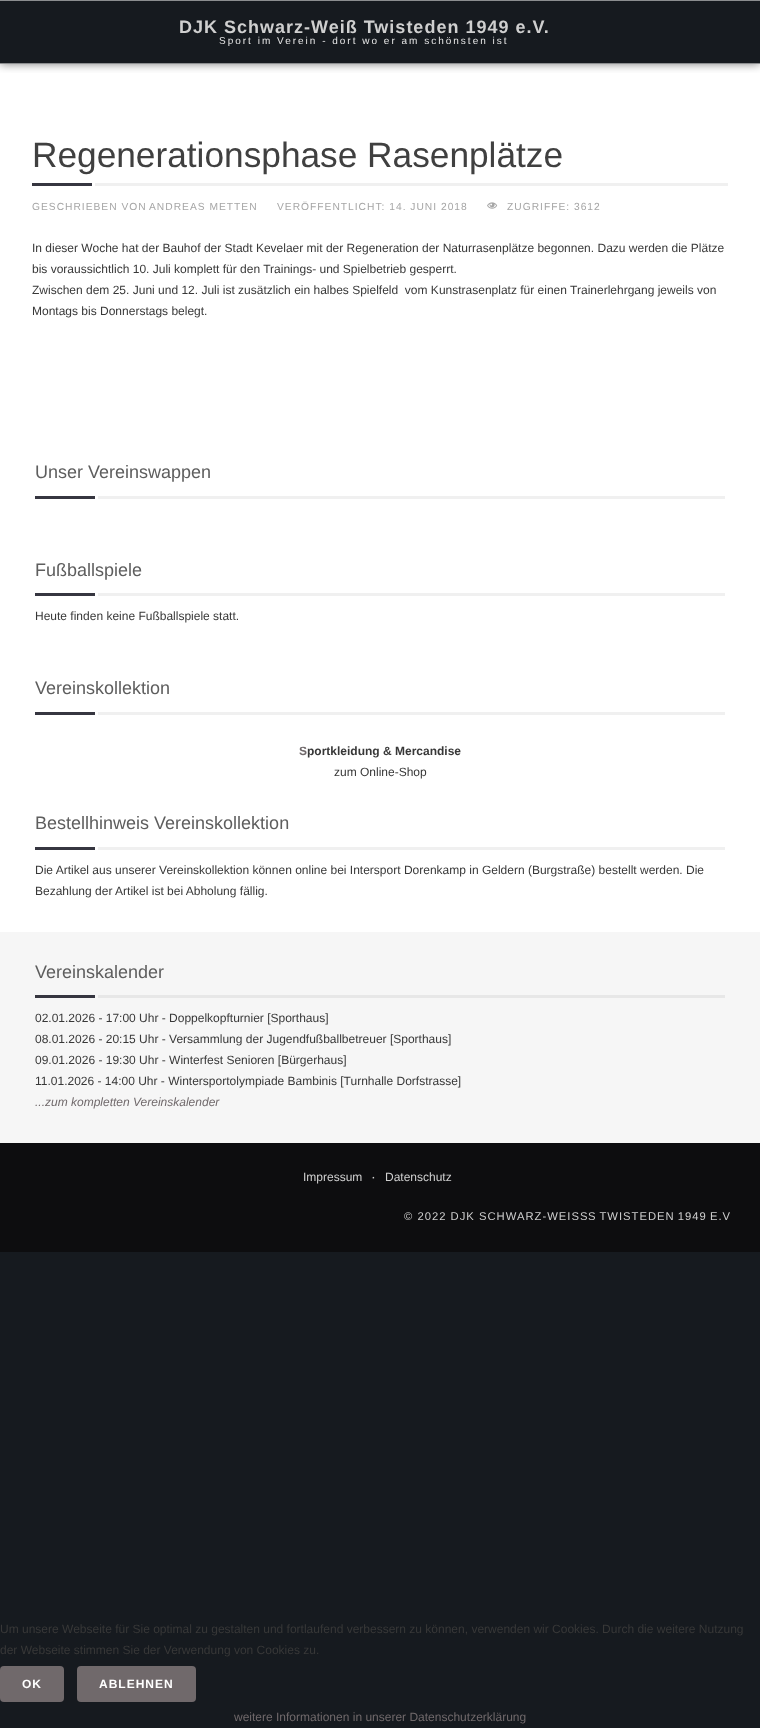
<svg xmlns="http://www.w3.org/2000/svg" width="760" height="1728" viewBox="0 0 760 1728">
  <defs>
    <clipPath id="clip1"><path d="M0 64h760v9H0z"/></clipPath>
  </defs>
  <rect width="100%" height="100%" fill="#161a1f"/>
  <path d="M0 64h760v868H0z" fill="#fff"/>
  <g clip-path="url(#clip1)">
    <path d="M0 0h760v64H0z" fill="#00000080" filter="blur(5px)"/>
  </g>
  <path d="M0 63h760v1H0z" fill="#8b8d8f"/>
  <path d="M0 0h760v1H0z" fill="#8b8d8f"/>
  <path d="M32 183h60v3H32z" fill="#363640"/>
  <path d="M95 183h633v3H95z" fill="#f0f0f0"/>
  <image x="487" y="202" width="11" height="7" href="img/1.png"/>
  <path d="M35 496h60v3H35z" fill="#363640"/>
  <path d="M98 496h627v3H98z" fill="#f0f0f0"/>
  <path d="M35 593h60v3H35z" fill="#363640"/>
  <path d="M98 593h627v3H98z" fill="#f0f0f0"/>
  <path d="M35 712h60v3H35z" fill="#363640"/>
  <path d="M98 712h627v3H98z" fill="#f0f0f0"/>
  <path d="M35 847h60v3H35z" fill="#363640"/>
  <path d="M98 847h627v3H98z" fill="#f0f0f0"/>
  <path d="M0 932h760v211H0z" fill="#f6f6f6"/>
  <path d="M35 995h60v3H35z" fill="#363640"/>
  <path d="M98 995h627v3H98z" fill="#e7e7e7"/>
  <path d="M0 1143h760v109H0z" fill="#0d0d0f"/>
  <rect y="1666" width="64" height="36" rx="4" fill="#70696b"/>
  <rect x="77" y="1666" width="119" height="36" rx="4" fill="#70696b"/>
  <text x="179" y="33" font-family="Liberation Sans" font-size="18" font-weight="bold" letter-spacing="1" fill="#cfcfcf">DJK Schwarz-Weiß Twisteden 1949 e.V.</text>
  <text x="219" y="44" font-family="Liberation Sans" font-size="10" letter-spacing="2" fill="#e6e6e6">Sport im Verein - dort wo er am schönsten ist</text>
  <text x="32" y="167" font-family="Liberation Sans" font-size="35.25" fill="#404040">Regenerationsphase Rasenplätze</text>
  <g font-family="Liberation Sans" font-size="10.25" letter-spacing="1" fill="#a6a6a6">
    <text x="32" y="210">GESCHRIEBEN VON</text>
    <text x="149" y="210">ANDREAS METTEN</text>
    <text x="277" y="210">VERÖFFENTLICHT: 14. JUNI 2018</text>
    <text x="507" y="210">ZUGRIFFE: 3612</text>
  </g>
  <g font-family="Liberation Sans" font-size="12" fill="#383838">
    <text x="32" y="252">In dieser Woche hat der Bauhof der Stadt Kevelaer mit der Regeneration der Naturrasenplätze begonnen. Dazu werden die Plätze</text>
    <text x="32" y="273">bis voraussichtlich 10. Juli komplett für den Trainings- und Spielbetrieb gesperrt.</text>
    <text x="32" y="294" xml:space="preserve">Zwischen dem 25. Juni und 12. Juli ist zusätzlich ein halbes Spielfeld  vom Kunstrasenplatz für einen Trainerlehrgang jeweils von</text>
    <text x="32" y="315">Montags bis Donnerstags belegt.</text>
  </g>
  <g font-family="Liberation Sans" font-size="18" fill="#5e5e5e">
    <text x="35" y="478">Unser Vereinswappen</text>
    <text x="35" y="576">Fußballspiele</text>
  </g>
  <text x="35" y="620" font-family="Liberation Sans" font-size="12" fill="#383838">Heute finden keine Fußballspiele statt.</text>
  <text x="35" y="694" font-family="Liberation Sans" font-size="18" fill="#5e5e5e">Vereinskollektion</text>
  <text x="299" y="755" font-family="Liberation Sans" font-size="12" font-weight="bold" fill="#70696b">S</text>
  <text x="307" y="755" font-family="Liberation Sans" font-size="12" font-weight="bold" fill="#383838">portkleidung &amp; Mercandise</text>
  <text x="334" y="776" font-family="Liberation Sans" font-size="12" fill="#383838">zum Online-Shop</text>
  <text x="35" y="829" font-family="Liberation Sans" font-size="18" fill="#5e5e5e">Bestellhinweis Vereinskollektion</text>
  <g font-family="Liberation Sans" font-size="12" fill="#383838">
    <text x="35" y="874">Die Artikel aus unserer Vereinskollektion können online bei Intersport Dorenkamp in Geldern (Burgstraße) bestellt werden. Die</text>
    <text x="35" y="895">Bezahlung der Artikel ist bei Abholung fällig.</text>
  </g>
  <text x="35" y="978" font-family="Liberation Sans" font-size="18" fill="#5e5e5e">Vereinskalender</text>
  <g font-family="Liberation Sans" font-size="12" fill="#383838">
    <text x="35" y="1022">02.01.2026 - 17:00 Uhr - Doppelkopfturnier [Sporthaus]</text>
    <text x="35" y="1043">08.01.2026 - 20:15 Uhr - Versammlung der Jugendfußballbetreuer [Sporthaus]</text>
    <text x="35" y="1064">09.01.2026 - 19:30 Uhr - Winterfest Senioren [Bürgerhaus]</text>
    <text x="35" y="1085">11.01.2026 - 14:00 Uhr - Wintersportolympiade Bambinis [Turnhalle Dorfstrasse]</text>
  </g>
  <text x="35" y="1106" font-family="Liberation Sans" font-size="12" font-style="italic" fill="#70696b">...zum kompletten Vereinskalender</text>
  <text x="303" y="1181" font-family="Liberation Sans" font-size="12" fill="#cfcfcf">Impressum</text>
  <text x="372" y="1181" font-family="Liberation Sans" font-size="10" font-weight="bold" fill="#cfcfcf">·</text>
  <text x="385" y="1181" font-family="Liberation Sans" font-size="12" fill="#cfcfcf">Datenschutz</text>
  <g font-family="Liberation Sans" font-size="11.25" letter-spacing="1" fill="#cfcfcf">
    <text x="404" y="1220">© 2022 DJK SCHWARZ-WEISS</text>
    <text x="588" y="1220" word-spacing="-1">S TWISTEDEN 1949 E.V</text>
  </g>
  <g font-family="Liberation Sans" font-size="12" fill="#383838">
    <text x="0" y="1633">Um unsere Webseite für Sie optimal zu gestalten und fortlaufend verbessern zu können, verwenden wir Cookies. Durch die weitere Nutzung</text>
    <text x="0" y="1654">der Webseite stimmen Sie der Verwendung von Cookies zu.</text>
  </g>
  <g font-family="Liberation Sans" font-size="12" font-weight="bold" letter-spacing="1" fill="#fff">
    <text x="22" y="1688">OK</text>
    <text x="99" y="1688">ABLEHNEN</text>
  </g>
  <text x="234" y="1721" font-family="Liberation Sans" font-size="12" fill="#70696b">weitere Informationen in unserer Datenschutzerklärung</text>
</svg>
